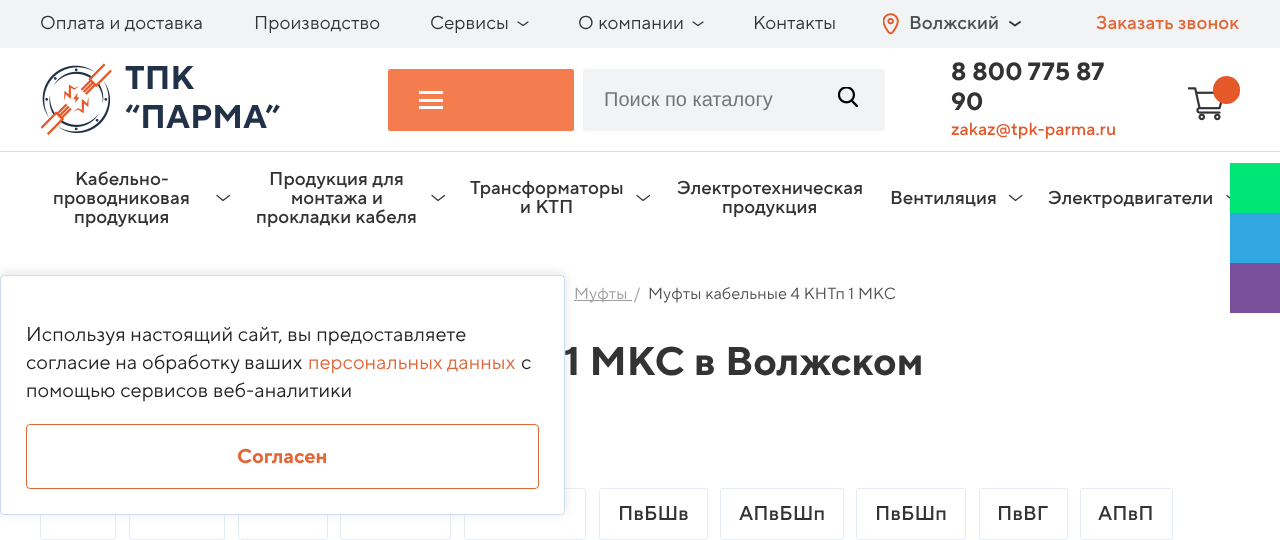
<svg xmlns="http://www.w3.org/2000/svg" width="1280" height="540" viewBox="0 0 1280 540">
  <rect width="100%" height="100%" fill="#fff"/>
  <path d="M0 0h1280v48H0z" fill="#f2f3f5"/>
  <path d="M528 22L523 25.5L518 22" fill="none" stroke="#333" stroke-width="1.2" stroke-linecap="round" stroke-linejoin="round"/>
  <path d="M703 22L698 25.5L693 22" fill="none" stroke="#333" stroke-width="1.2" stroke-linecap="round" stroke-linejoin="round"/>
  <image x="883" y="13" width="16" height="22" href="img/1.png"/>
  <path d="M1020 22L1015 25.5L1010 22" fill="none" stroke="#333" stroke-width="1.9" stroke-linecap="round" stroke-linejoin="round"/>
  <path d="M0 151h1280v1H0z" fill="#d9dee5"/>
  <image x="41" y="63" width="71" height="72" href="img/2.png"/>
  <rect x="388" y="69" width="186" height="62" rx="2.5" fill="#f57c4e"/>
  <path d="M419 91h24v3H419z" fill="#fff"/>
  <path d="M419 99h24v3H419z" fill="#fff"/>
  <path d="M419 106h24v3H419z" fill="#fff"/>
  <rect x="583" y="69" width="302" height="62" rx="2.5" fill="#f2f3f5"/>
  <image x="838" y="87" width="20" height="20" href="img/3.png"/>
  <image x="1188" y="87" width="35" height="34" href="img/4.png"/>
  <rect x="1213" y="76" width="27" height="28" rx="13.5" fill="#e45829"/>
  <path d="M229.5 195.5L223 200.5L217 195.5" fill="none" stroke="#333" stroke-width="1.2" stroke-linecap="round" stroke-linejoin="round"/>
  <path d="M444.5 195.5L438 200.5L432 195.5" fill="none" stroke="#333" stroke-width="1.2" stroke-linecap="round" stroke-linejoin="round"/>
  <path d="M649.5 195.5L643 200.5L637 195.5" fill="none" stroke="#333" stroke-width="1.2" stroke-linecap="round" stroke-linejoin="round"/>
  <path d="M1022 195.5L1015.5 200.5L1009.5 195.5" fill="none" stroke="#333" stroke-width="1.2" stroke-linecap="round" stroke-linejoin="round"/>
  <path d="M1239.5 195.5L1233 200.5L1227 195.5" fill="none" stroke="#333" stroke-width="1.2" stroke-linecap="round" stroke-linejoin="round"/>
  <path d="M1230 163h50v50H1230z" fill="#00e676"/>
  <path d="M1230 213h50v50H1230z" fill="#30a7de"/>
  <path d="M1230 263h50v50H1230z" fill="#7a509c"/>
  <path d="M574 300h58v1H574z" fill="#9e9e9e"/>
  <rect x="40.5" y="488.5" width="75" height="51" rx="2" fill="none" stroke="#e5ecf3"/>
  <rect x="129.5" y="488.5" width="95" height="51" rx="2" fill="none" stroke="#e5ecf3"/>
  <rect x="238.5" y="488.5" width="89" height="51" rx="2" fill="none" stroke="#e5ecf3"/>
  <rect x="340.5" y="488.5" width="110" height="51" rx="2" fill="none" stroke="#e5ecf3"/>
  <rect x="464.5" y="488.5" width="121" height="51" rx="2" fill="none" stroke="#e5ecf3"/>
  <rect y="273" width="565" height="240" rx="4" fill="#0000001a" filter="blur(6px)"/>
  <rect y="275" width="565" height="240" rx="4" fill="#fff"/>
  <rect x="0.5" y="275.5" width="564" height="239" rx="3.5" fill="none" stroke="#004bb133"/>
  <rect x="26.5" y="424.5" width="512" height="64" rx="3.5" fill="none" stroke="#e36637"/>
  <rect x="599.5" y="488.5" width="108" height="51" rx="2" fill="none" stroke="#e5ecf3"/>
  <rect x="720.5" y="488.5" width="123" height="51" rx="2" fill="none" stroke="#e5ecf3"/>
  <rect x="856.5" y="488.5" width="109" height="51" rx="2" fill="none" stroke="#e5ecf3"/>
  <rect x="979.5" y="488.5" width="88" height="51" rx="2" fill="none" stroke="#e5ecf3"/>
  <rect x="1080.5" y="488.5" width="92" height="51" rx="2" fill="none" stroke="#e5ecf3"/>
  <g font-family="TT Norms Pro" font-size="18.75" letter-spacing="0.1" fill="#333">
    <text x="40" y="29">Оплата и доставка</text>
    <text x="254" y="29">Производство</text>
    <text x="430" y="29">Сервисы</text>
    <text x="578" y="29">О компании</text>
    <text x="753" y="29">Контакты</text>
  </g>
  <text x="909" y="29" font-family="TT Norms Pro" font-size="18.75" font-weight="500" letter-spacing="0.1" fill="#4f4f4f">Волжский</text>
  <text x="1096" y="29" font-family="TT Norms Pro" font-size="18.75" font-weight="500" letter-spacing="0.1" fill="#e36637">Заказать звонок</text>
  <g font-family="TT Norms Pro" font-size="33" font-weight="bold" letter-spacing="0.1" fill="#213147">
    <text x="125" y="89">ТПК</text>
    <text x="125" y="128">“ПАРМА”</text>
  </g>
  <text x="604" y="106" font-family="Liberation Sans" font-size="20" fill="#757575">Поиск по каталогу</text>
  <g font-family="TT Norms Pro" font-size="25" font-weight="bold" letter-spacing="0.1" fill="#333">
    <text x="951" y="80">8 800 775 87</text>
    <text x="951" y="110">90</text>
  </g>
  <text x="951" y="135" font-family="TT Norms Pro" font-size="17.5" font-weight="500" letter-spacing="0.1" fill="#e45829">zakaz@tpk-parma.ru</text>
  <g font-family="TT Norms Pro" font-size="18.75" font-weight="500" letter-spacing="0.1" fill="#333">
    <text x="75" y="185">Кабельно-</text>
    <text x="53" y="204">проводниковая</text>
    <text x="74" y="223">продукция</text>
    <text x="269" y="185">Продукция для</text>
    <text x="291" y="204">монтажа и</text>
    <text x="256" y="223">прокладки кабеля</text>
    <text x="470" y="194">Трансформаторы</text>
    <text x="520" y="213">и КТП</text>
    <text x="677" y="194">Электротехническая</text>
    <text x="722" y="213">продукция</text>
    <text x="890" y="204">Вентиляция</text>
    <text x="1048" y="204">Электродвигатели</text>
  </g>
  <g font-family="TT Norms Pro" font-size="16.25" letter-spacing="0.1" fill="#9e9e9e">
    <text x="574" y="299">Муфты</text>
    <text x="634" y="299">/</text>
  </g>
  <text x="648" y="299" font-family="TT Norms Pro" font-size="16.25" letter-spacing="0.1" fill="#4f4f4f">Муфты кабельные 4 КНТп 1 МКС</text>
  <g font-family="TT Norms Pro" font-size="20" letter-spacing="0.1" fill="#222">
    <text x="26" y="341">Используя настоящий сайт, вы предоставляете</text>
    <text x="26" y="369">согласие на обработку ваших</text>
  </g>
  <text x="308" y="369" font-family="TT Norms Pro" font-size="20" letter-spacing="0.1" fill="#e36637">персональных данных</text>
  <g font-family="TT Norms Pro" font-size="20" letter-spacing="0.1" fill="#222">
    <text x="521" y="369">с</text>
    <text x="26" y="397">помощью сервисов веб-аналитики</text>
  </g>
  <text x="237" y="463" font-family="TT Norms Pro" font-size="20" font-weight="bold" fill="#e36637">Согласен</text>
  <text x="564" y="375" font-family="TT Norms Pro" font-size="40" font-weight="bold" letter-spacing="0.1" fill="#333">1 МКС в Волжском</text>
  <g font-family="TT Norms Pro" font-size="20" font-weight="500" letter-spacing="0.1" fill="#333">
    <text x="618" y="520">ПвБШв</text>
    <text x="739" y="520">АПвБШп</text>
    <text x="875" y="520">ПвБШп</text>
    <text x="997" y="520">ПвВГ</text>
    <text x="1098" y="520">АПвП</text>
  </g>
</svg>
